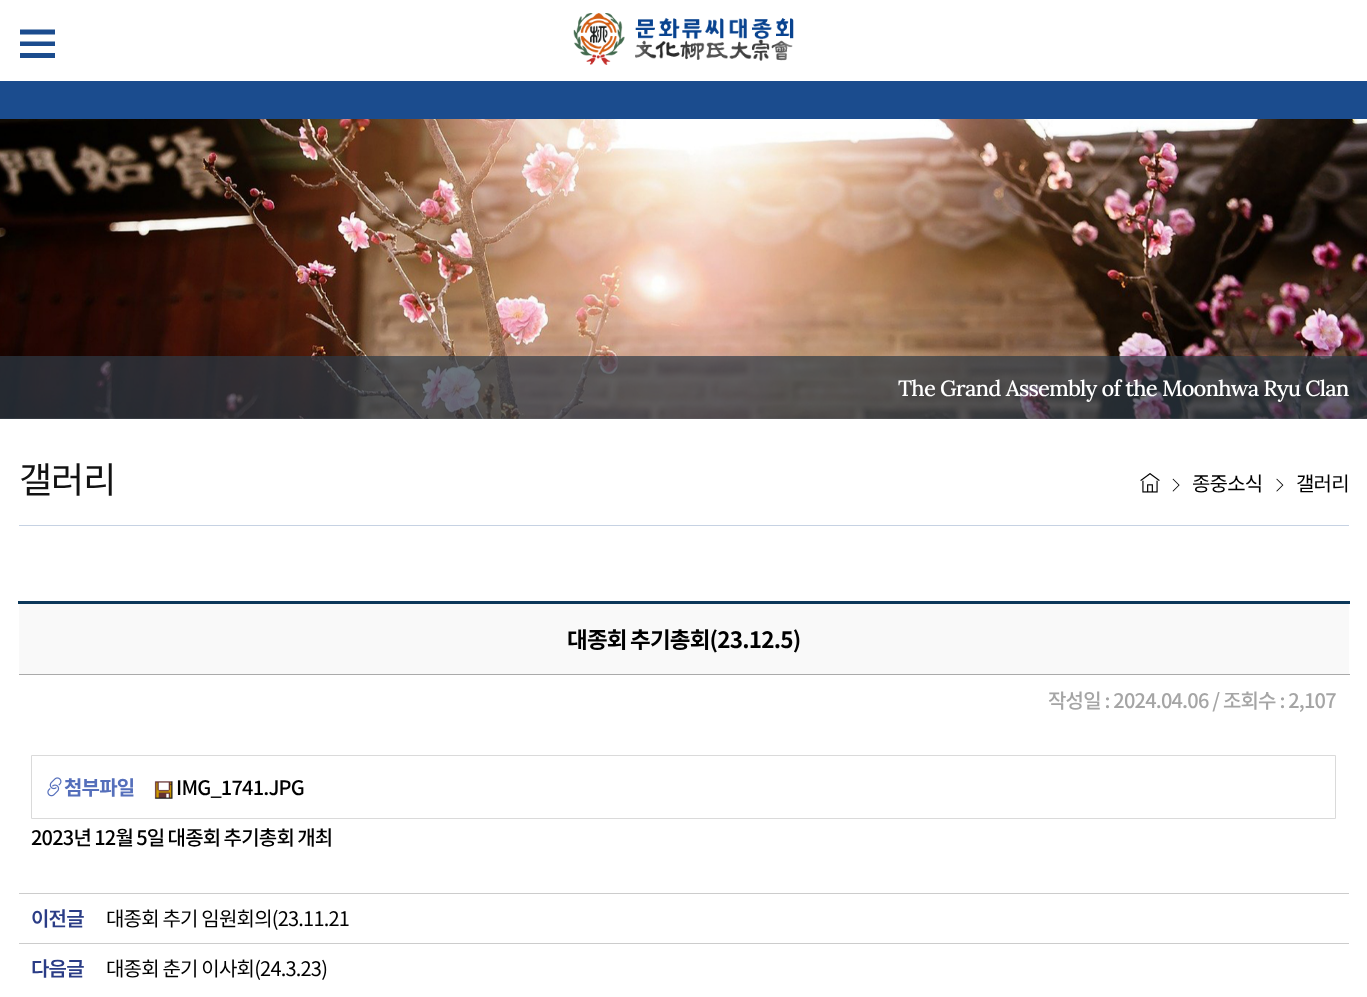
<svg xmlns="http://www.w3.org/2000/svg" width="1367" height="997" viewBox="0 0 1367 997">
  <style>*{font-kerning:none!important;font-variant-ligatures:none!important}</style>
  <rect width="100%" height="100%" fill="#fff"/>
  <path d="M0 81h1367v38H0z" fill="#1b4c8e"/>
  <path d="M55 29.5V34.5H20V29.5ZM20 46H55V41.5H20ZM20 58H55V53H20Z" fill="#1b4c8e"/>
  <image x="573" y="13" width="221" height="52" href="img/1.png"/>
  <image x="0" y="119" width="1367" height="300" href="img/2.png"/>
  <path d="M0 356h1367v63H0z" fill="#2e3a46b3"/>
  <path d="M19 525h1330v1H19z" fill="#c6d2e3"/>
  <image x="1140" y="473" width="20" height="20" href="img/3.png"/>
  <image x="1172" y="478" width="8" height="14" href="img/4.png"/>
  <image x="1276" y="478" width="8" height="14" href="img/5.png"/>
  <path d="M19 604h1330v70H19z" fill="#f9f9f9"/>
  <path d="M19 674h1331v1H19z" fill="#aaa"/>
  <path d="M18 601h1332v3H18z" fill="#0c385a"/>
  <path d="M31.5 755.5h1304v63H31.5z" fill="none" stroke="#dadada"/>
  <image x="47" y="777" width="15" height="20" href="img/6.png"/>
  <image x="154" y="781" width="19" height="18" href="img/7.png"/>
  <path d="M19 893h1330v1H19z" fill="#ccc"/>
  <path d="M19 943h1330v1H19z" fill="#ccc"/>
  <text x="898" y="396" font-family="Lora" font-size="22" font-weight="500" letter-spacing="-0.8" fill="#fff">The Grand Assembly of the Moonhwa Ryu Clan</text>
  <text x="19" y="493" font-family="Noto Sans KR" font-size="36" letter-spacing="-1" fill="#121212">갤러리</text>
  <g font-family="Noto Sans KR" font-size="20" letter-spacing="-0.8" fill="#000">
    <text x="1192" y="491">종중소식</text>
    <text x="1296" y="491">갤러리</text>
  </g>
  <text x="567" y="648" word-spacing="-1" font-family="Noto Sans KR" font-size="22.5" font-weight="bold" letter-spacing="-0.8" fill="#000">대종회 추기총회(23.12.5)</text>
  <text x="1048" y="708" font-family="Noto Sans KR" font-size="20" font-weight="500" letter-spacing="-0.8" fill="#a5a5a5">작성일 : 2024.04.06 / 조회수 : 2,107</text>
  <text x="64" y="795" font-family="Noto Sans KR" font-size="20" font-weight="bold" letter-spacing="-0.8" fill="#556fbb">첨부파일</text>
  <g font-family="Noto Sans KR" font-size="20" font-weight="500" letter-spacing="-0.8" fill="#000">
    <text x="176" y="795">IMG_1741.JPG</text>
    <text x="31" y="845" word-spacing="-0.5">2023년 12월 5일 대종회 추기총회 개최</text>
  </g>
  <text x="31" y="926" font-family="Noto Sans KR" font-size="20" font-weight="600" letter-spacing="-0.8" fill="#2a3c86">이전글</text>
  <text x="106" y="926" font-family="Noto Sans KR" font-size="20" letter-spacing="-0.8" fill="#000">대종회 추기 임원회의(23.11.21</text>
  <text x="31" y="976" font-family="Noto Sans KR" font-size="20" font-weight="600" letter-spacing="-0.8" fill="#2a3c86">다음글</text>
  <text x="106" y="976" font-family="Noto Sans KR" font-size="20" letter-spacing="-0.8" fill="#000">대종회 춘기 이사회(24.3.23)</text>
</svg>
